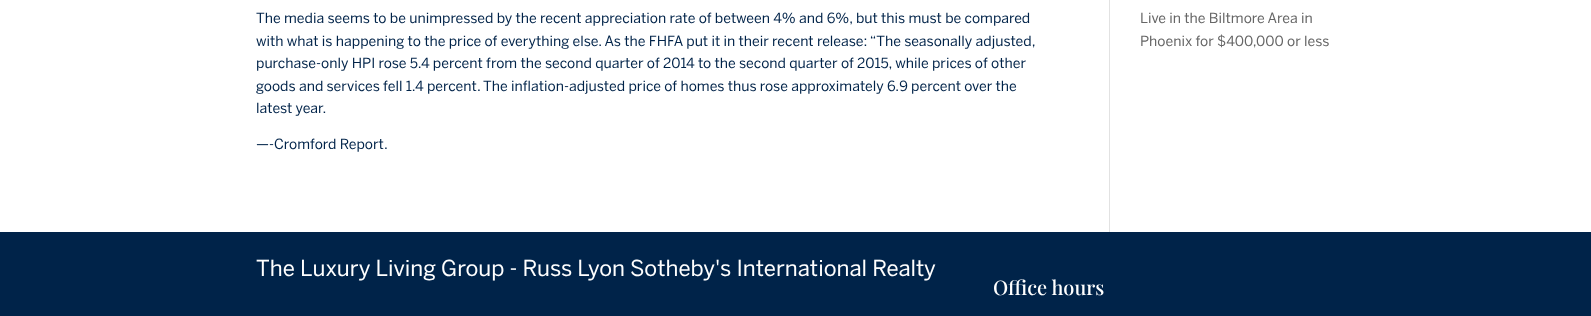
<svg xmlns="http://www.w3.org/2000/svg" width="1591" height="316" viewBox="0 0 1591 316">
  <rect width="100%" height="100%" fill="#fff"/>
  <path d="M1109 0h1v232H1109z" fill="#e2e2e2"/>
  <path d="M0 232h1591v84H0z" fill="#002349"/>
  <g font-family="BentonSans" font-size="14" fill="#002349">
    <text x="256" y="23">The media seems to be unimpressed by the recent appreciation rate of between 4% and 6%, but this must be compared</text>
    <text x="256" y="46">with what is happening to the price of everything else. As the FHFA put it in their recent release: “The seasonally adjusted,</text>
    <text x="256" y="68">purchase-only HPI rose 5.4 percent from the second quarter of 2014 to the second quarter of 2015, while prices of other</text>
    <text x="256" y="91">goods and services fell 1.4 percent. The inflation-adjusted price of homes thus rose approximately 6.9 percent over the</text>
    <text x="256" y="113">latest year.</text>
    <text x="256" y="149">—-Cromford Report.</text>
  </g>
  <g font-family="BentonSans" font-size="14" fill="#666">
    <text x="1140" y="23">Live in the Biltmore Area in</text>
    <text x="1140" y="46">Phoenix for $400,000 or less</text>
  </g>
  <text x="256" y="276" font-family="BentonSans" font-size="22" fill="#fff">The Luxury Living Group - Russ Lyon Sotheby's International Realty</text>
  <text x="993" y="295" font-family="Playfair Display" font-size="20" font-weight="500" fill="#fff">Office hours</text>
</svg>
